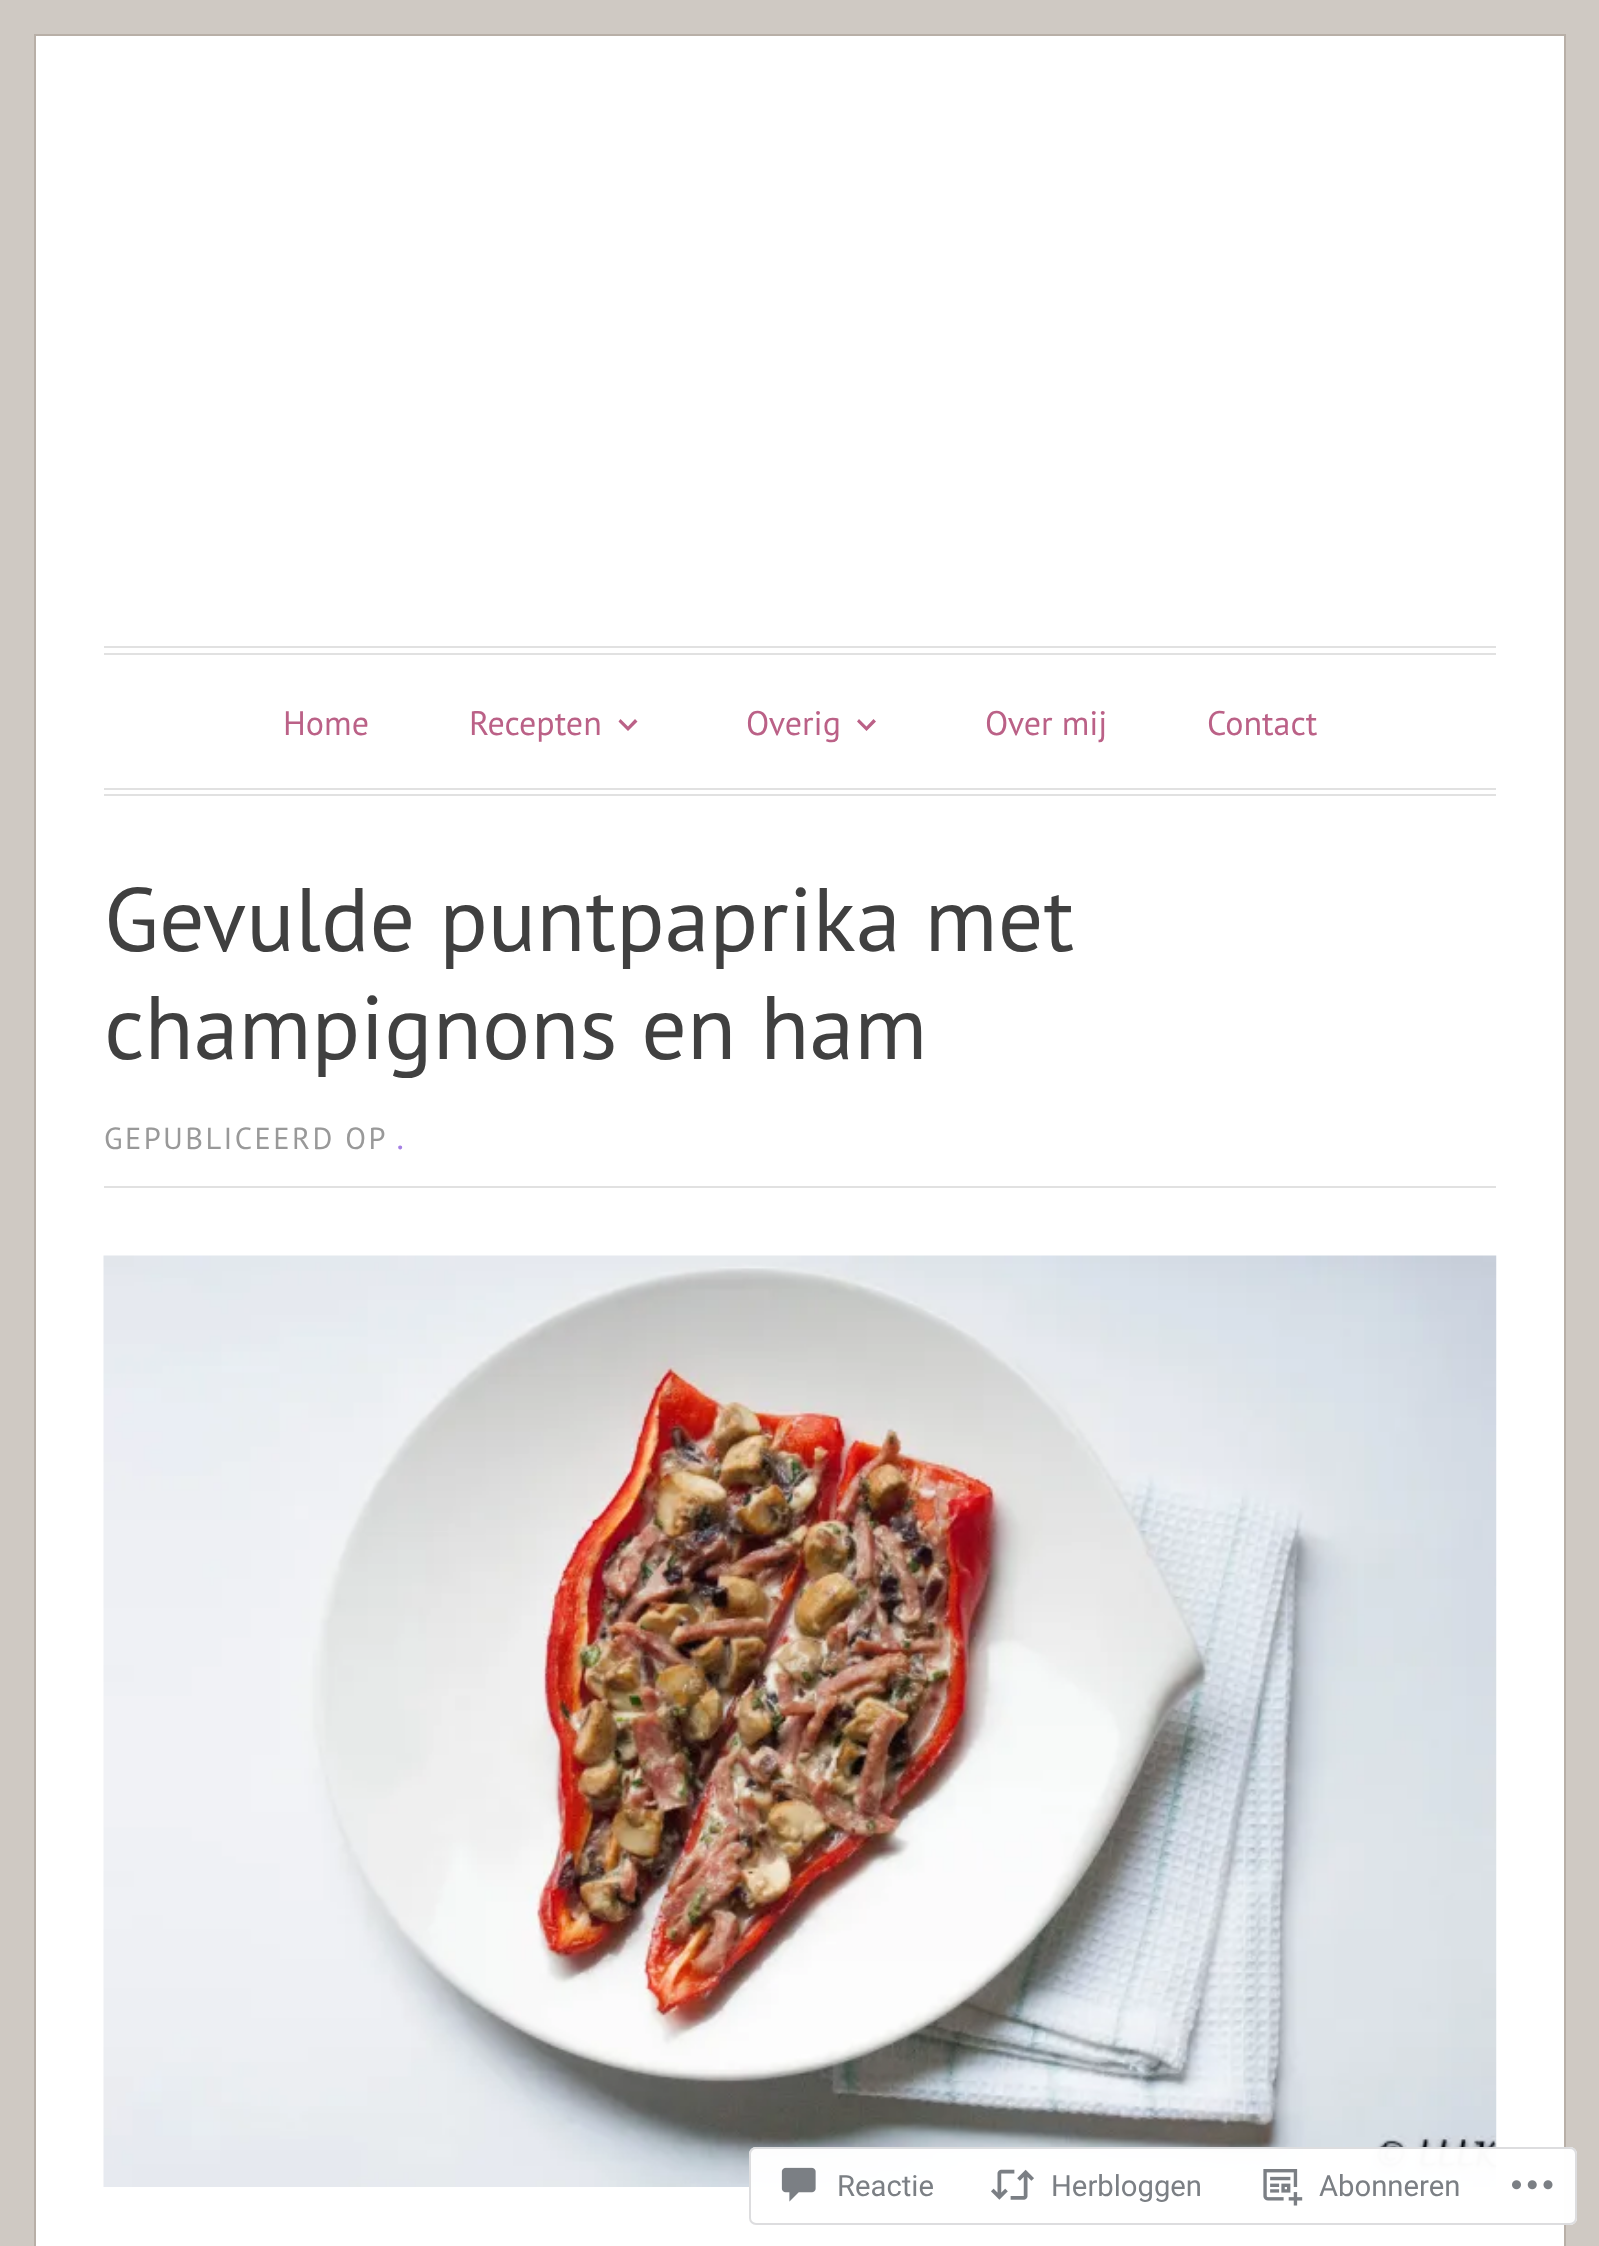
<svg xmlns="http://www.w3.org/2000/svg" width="1599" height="2246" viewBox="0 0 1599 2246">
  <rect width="100%" height="100%" fill="#cfc9c3"/>
  <path d="M35 35h1530v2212H35z" fill="#fff" stroke="#b8afa7" stroke-width="2"/>
  <path d="M104 646h1392v2H104z" fill="#e1e1e1"/>
  <path d="M104 653h1392v2H104z" fill="#e1e1e1"/>
  <path d="M104 788h1392v2H104z" fill="#e1e1e1"/>
  <path d="M104 794h1392v2H104z" fill="#e1e1e1"/>
  <path d="M635 719L637.5 721.5L628 731L618.5 721.5L620.5 719L628 726.5Z" fill="#bb6187"/>
  <path d="M873.5 719L876 721.5L866.5 731L857 721.5L859 719L866.5 726.5Z" fill="#bb6187"/>
  <path d="M104 1186h1392v2H104z" fill="#e1e1e1"/>
  <image x="103" y="1255" width="1394" height="932" href="img/1.png"/>
  <rect x="749" y="2147" width="828" height="78" rx="7" fill="#fffffffa"/>
  <rect x="750" y="2148" width="826" height="76" rx="6" fill="none" stroke="#dcdcdefa" stroke-width="2"/>
  <image x="781" y="2167" width="35" height="35" href="img/2.png"/>
  <image x="991" y="2169" width="43" height="31" href="img/3.png"/>
  <image x="1263" y="2169" width="40" height="37" href="img/4.png"/>
  <image x="1512" y="2180" width="41" height="10" href="img/5.png"/>
  <g font-family="PT Sans" font-size="34" fill="#bb6187">
    <text x="283" y="735">Home</text>
    <text x="469" y="735">Recepten</text>
    <text x="746" y="735">Overig</text>
    <text x="985" y="735">Over mij</text>
    <text x="1207" y="735">Contact</text>
  </g>
  <g font-family="PT Sans" font-size="90" fill="#404040">
    <text x="104" y="951">Gevulde puntpaprika met</text>
    <text x="104" y="1059">champignons en ham</text>
  </g>
  <text x="104" y="1149" font-family="PT Sans" font-size="30.4" letter-spacing="2.4" fill="#999">GEPUBLICEERD OP</text>
  <text x="397" y="1149" font-family="PT Sans" font-size="34" font-style="italic" fill="#a680e4">.</text>
  <g font-family="Roboto" font-size="29.25" fill="#7b7f84">
    <text x="837" y="2196">Reactie</text>
    <text x="1051" y="2196">Herbloggen</text>
    <text x="1319" y="2196">Abonneren</text>
  </g>
</svg>
